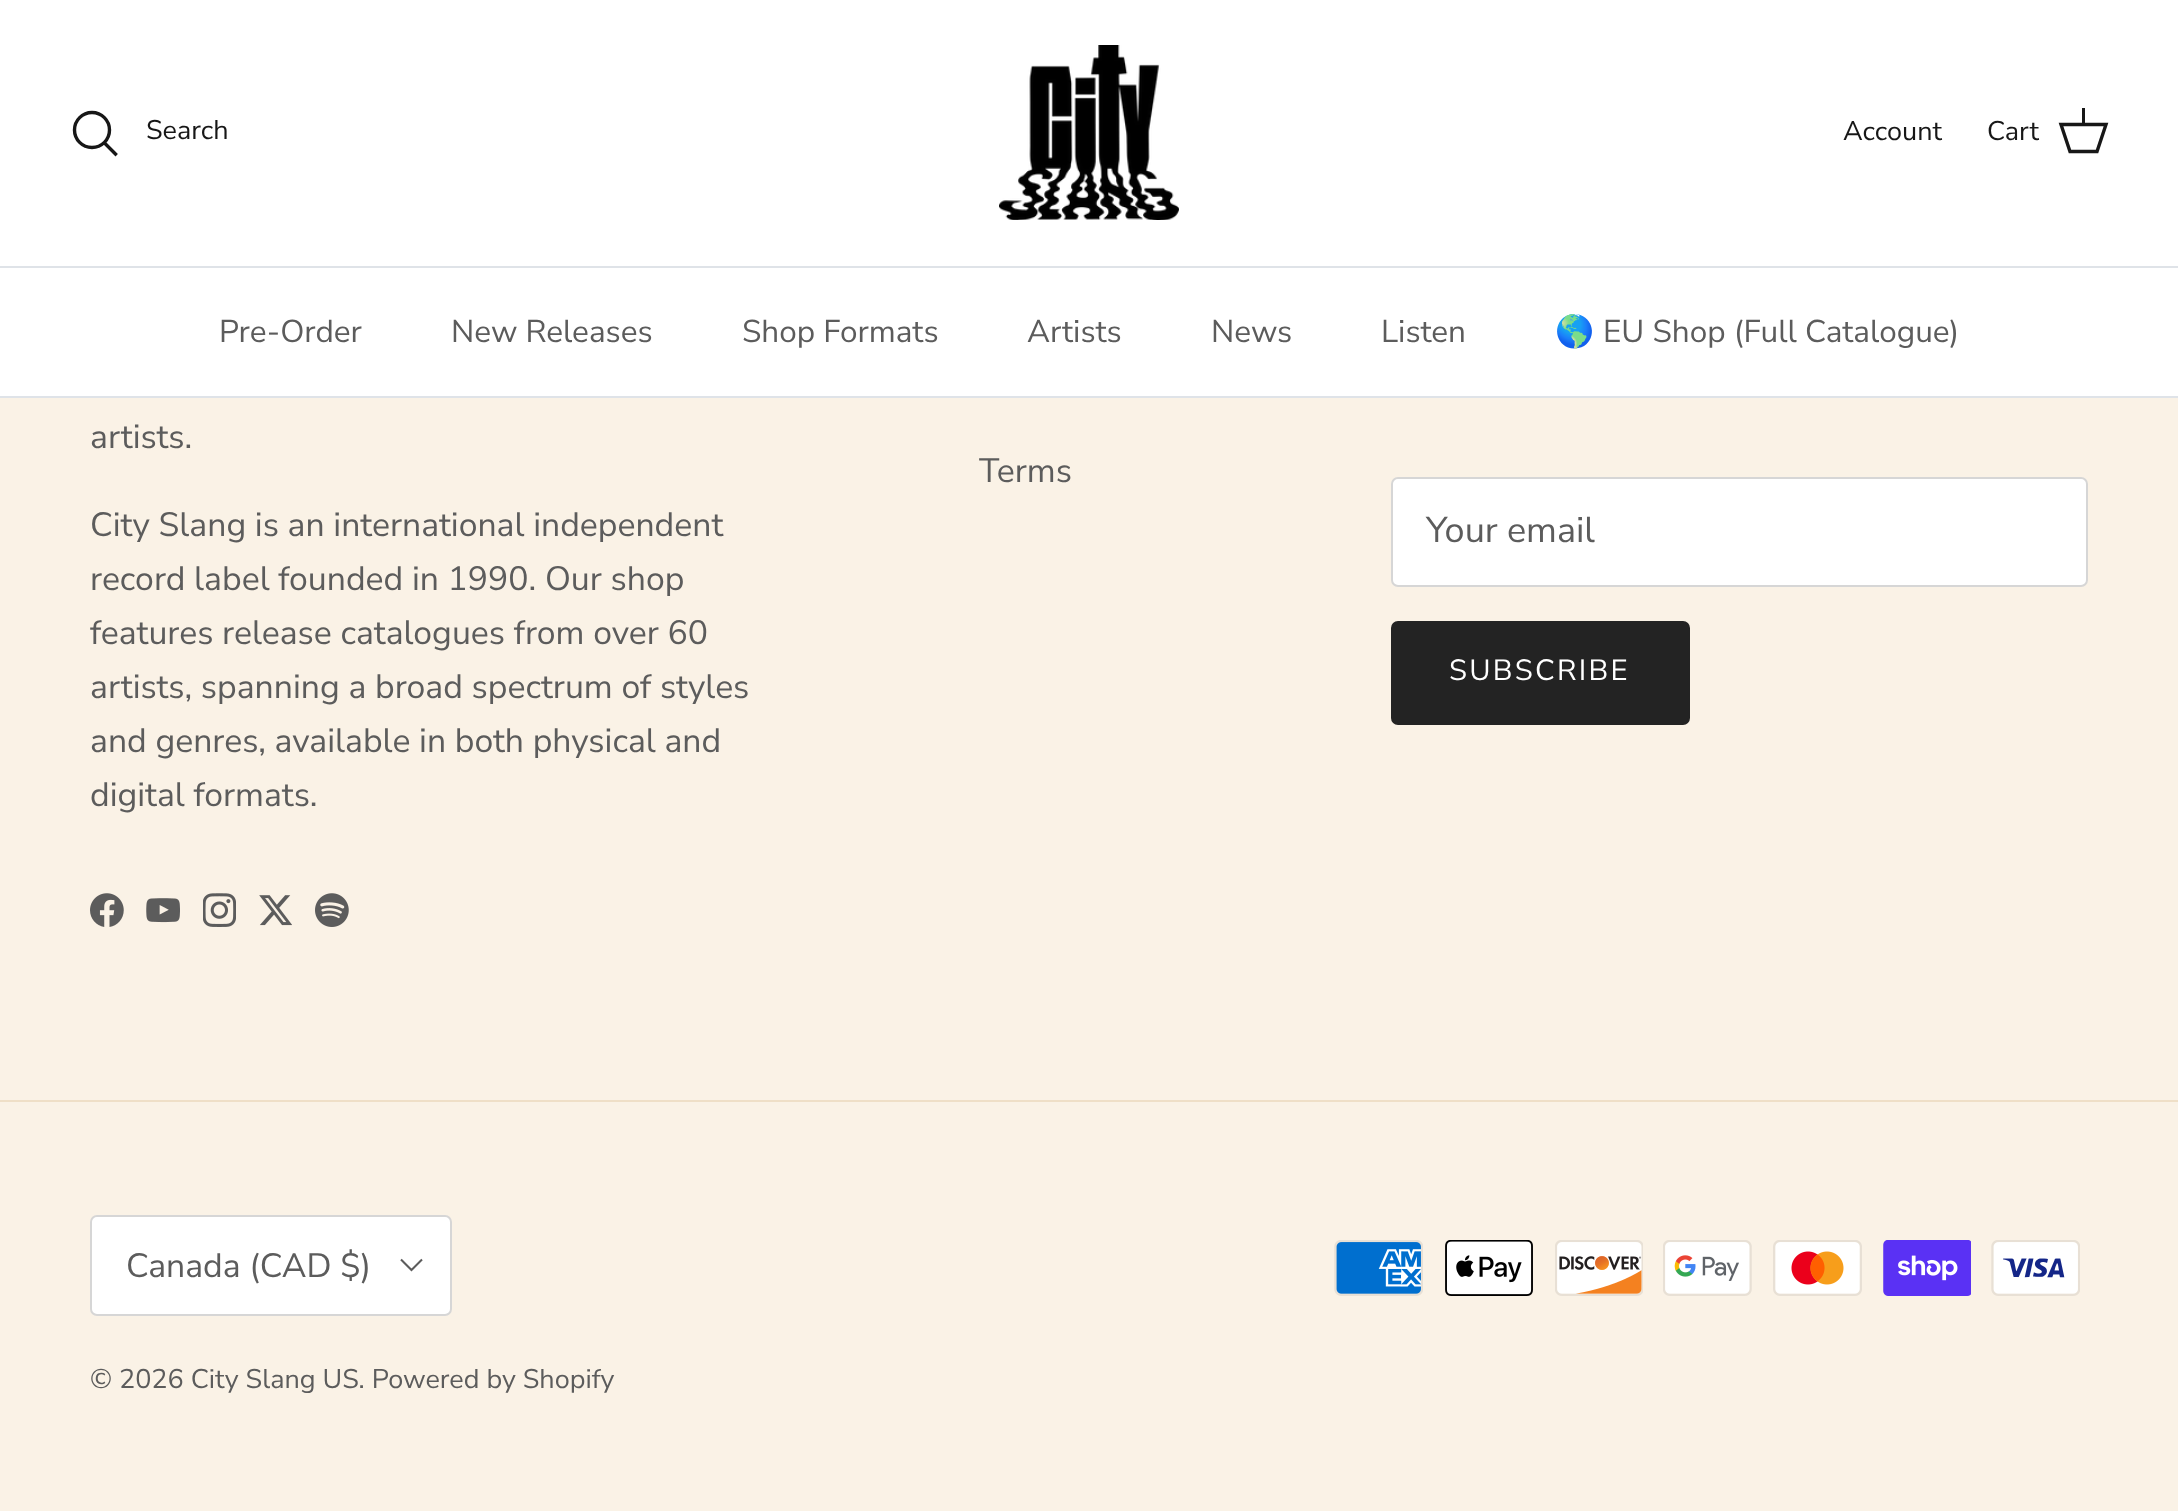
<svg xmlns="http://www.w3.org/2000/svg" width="2178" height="1511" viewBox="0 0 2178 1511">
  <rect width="100%" height="100%" fill="#faf2e6"/>
  <path d="M0 0h2178v266H0z" fill="#fff"/>
  <path d="M0 266h2178v2H0z" fill="#dfe3e8"/>
  <circle cx="92" cy="130" r="17.5" fill="none" stroke="#171717" stroke-width="3.4"/>
  <path d="M105.5 144L115.5 154" fill="none" stroke="#171717" stroke-width="3.4" stroke-linecap="square"/>
  <image x="999" y="45" width="180" height="175" href="img/1.png"/>
  <path d="M2061 124.5H2106L2097 151.5H2070Z" fill="none" stroke="#171717" stroke-width="3.4"/>
  <path d="M2082 108h3v18H2082z" fill="#171717"/>
  <path d="M0 396h2178v2H0z" fill="#dfe3e8"/>
  <path d="M0 268h2178v128H0z" fill="#fff"/>
  <image x="90" y="893" width="34" height="34" href="img/2.png"/>
  <image x="146" y="898" width="34" height="25" href="img/3.png"/>
  <image x="203" y="893" width="33" height="34" href="img/4.png"/>
  <image x="259" y="895" width="33" height="31" href="img/5.png"/>
  <image x="315" y="893" width="34" height="34" href="img/6.png"/>
  <rect x="1392" y="478" width="695" height="108" rx="6" fill="#fff" stroke="#d6d6d6" stroke-width="2"/>
  <rect x="1392" y="622" width="297" height="102" rx="6" fill="#232323" stroke="#232323" stroke-width="2"/>
  <path d="M0 1100h2178v2H0z" fill="#efdfc7"/>
  <rect x="91" y="1216" width="360" height="99" rx="6" fill="#fff" stroke="#d6d6d6" stroke-width="2"/>
  <path d="M422 1259.5L411.5 1270L401 1259.5" fill="none" stroke="#5c5c5c" stroke-width="2.1"/>
  <image x="1334" y="1240" width="89" height="56" href="img/7.png"/>
  <image x="1445" y="1240" width="88" height="56" href="img/8.png"/>
  <image x="1555" y="1240" width="88" height="56" href="img/9.png"/>
  <image x="1663" y="1240" width="89" height="56" href="img/10.png"/>
  <image x="1773" y="1240" width="89" height="56" href="img/11.png"/>
  <image x="1883" y="1240" width="88" height="56" href="img/12.png"/>
  <image x="1991" y="1240" width="89" height="56" href="img/13.png"/>
  <g font-family="Nunito Sans" font-size="27" fill="#171717">
    <text x="146" y="139">Search</text>
    <text x="1843" y="140">Account</text>
    <text x="1987" y="140">Cart</text>
  </g>
  <g font-family="Nunito Sans" font-size="31.5" fill="#5c5c5c">
    <text x="219" y="342">Pre-Order</text>
    <text x="451" y="342">New Releases</text>
    <text x="742" y="342">Shop Formats</text>
    <text x="1027" y="342">Artists</text>
    <text x="1211" y="342">News</text>
    <text x="1381" y="342">Listen</text>
  </g>
  <text x="1555" y="342" font-family="Noto Color Emoji" font-size="31.5" fill="#5c5c5c">🌎</text>
  <text x="1603" y="342" font-family="Nunito Sans" font-size="31.5" fill="#5c5c5c">EU Shop (Full Catalogue)</text>
  <g font-family="Nunito Sans" font-size="33.75" fill="#5c5c5c">
    <text x="90" y="448">artists.</text>
    <text x="90" y="536">City Slang is an international independent</text>
    <text x="90" y="590">record label founded in 1990. Our shop</text>
    <text x="90" y="644">features release catalogues from over 60</text>
    <text x="90" y="698">artists, spanning a broad spectrum of styles</text>
    <text x="90" y="752">and genres, available in both physical and</text>
    <text x="90" y="806">digital formats.</text>
    <text x="979" y="482">Terms</text>
  </g>
  <text x="1426" y="542" font-family="Nunito Sans" font-size="36" fill="#5c5c5c">Your email</text>
  <text x="1449" y="680" font-family="Nunito Sans" font-size="29.25" letter-spacing="2.25" fill="#fff">SUBSCRIBE</text>
  <text x="126" y="1277" font-family="Nunito Sans" font-size="33.75" fill="#5c5c5c">Canada (CAD $)</text>
  <text x="90" y="1388" font-family="Nunito Sans" font-size="27" fill="#5c5c5c">© 2026 City Slang US. Powered by Shopify</text>
</svg>
